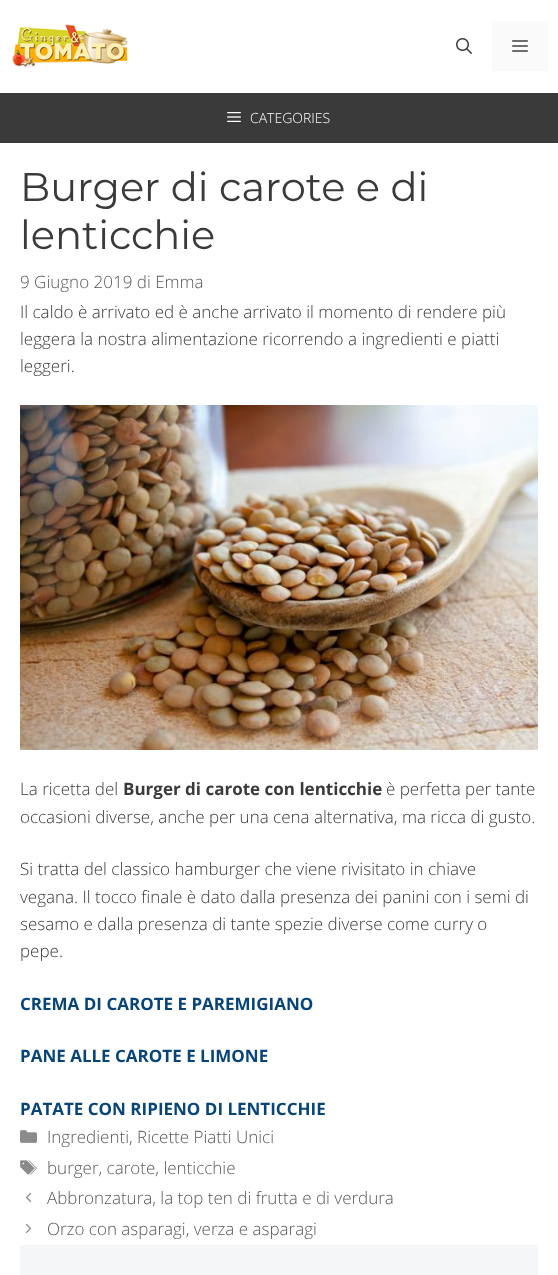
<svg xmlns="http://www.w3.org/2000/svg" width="558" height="1275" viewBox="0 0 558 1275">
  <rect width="100%" height="100%" fill="#3a3a3a"/>
  <path d="M0 0h558v93H0z" fill="#fff"/>
  <image x="12" y="24" width="116" height="44" href="img/1.png"/>
  <image x="456" y="38" width="16" height="16" href="img/2.png"/>
  <path d="M492 21h56v50H492z" fill="#fafafa"/>
  <image x="512" y="40" width="16" height="12" href="img/3.png"/>
  <image x="227" y="112" width="14" height="10" href="img/4.png"/>
  <path d="M0 143h558v1132H0z" fill="#fff"/>
  <image x="20" y="405" width="518" height="345" href="img/5.png"/>
  <image x="20" y="1130" width="17" height="13" href="img/6.png"/>
  <image x="20" y="1160" width="17" height="15" href="img/7.png"/>
  <image x="25" y="1192" width="7" height="11" href="img/8.png"/>
  <image x="25" y="1223" width="7" height="11" href="img/9.png"/>
  <path d="M20 1245h518v30H20z" fill="#f4f6f7"/>
  <text x="250" y="123" font-family="Open Sans" font-size="14" font-weight="300" fill="#fff">CATEGORIES</text>
  <g font-family="Montserrat" font-size="40" fill="#3a3a3a">
    <text x="20" y="201">Burger di carote e di</text>
    <text x="20" y="249">lenticchie</text>
  </g>
  <text x="20" y="288" font-family="Open Sans" font-size="17" font-weight="300" fill="#595959">9 Giugno 2019 di Emma</text>
  <g font-family="Open Sans" font-size="17" font-weight="300" fill="#3a3a3a">
    <text x="20" y="318">Il caldo è arrivato ed è anche arrivato il momento di rendere più</text>
    <text x="20" y="345">leggera la nostra alimentazione ricorrendo a ingredienti e piatti</text>
    <text x="20" y="372">leggeri.</text>
    <text x="20" y="795">La ricetta del</text>
  </g>
  <text x="123" y="795" font-family="Open Sans" font-size="17" font-weight="bold" fill="#3a3a3a">Burger di carote con lenticchie</text>
  <g font-family="Open Sans" font-size="17" font-weight="300" fill="#3a3a3a">
    <text x="386" y="795">è perfetta per tante</text>
    <text x="20" y="823">occasioni diverse, anche per una cena alternativa, ma ricca di gusto.</text>
    <text x="20" y="875">Si tratta del classico hamburger che viene rivisitato in chiave</text>
    <text x="20" y="903">vegana. Il tocco finale è dato dalla presenza dei panini con i semi di</text>
    <text x="20" y="930">sesamo e dalla presenza di tante spezie diverse come curry o</text>
    <text x="20" y="957">pepe.</text>
  </g>
  <g font-family="Open Sans" font-size="17" font-weight="bold" fill="#06447a">
    <text x="20" y="1010">CREMA DI CAROTE E PAREMIGIANO</text>
    <text x="20" y="1062">PANE ALLE CAROTE E LIMONE</text>
    <text x="20" y="1115">PATATE CON RIPIENO DI LENTICCHIE</text>
  </g>
  <g font-family="Open Sans" font-size="17" font-weight="300" fill="#595959">
    <text x="47" y="1143">Ingredienti, Ricette Piatti Unici</text>
    <text x="47" y="1174">burger, carote, lenticchie</text>
    <text x="47" y="1204">Abbronzatura, la top ten di frutta e di verdura</text>
    <text x="47" y="1235">Orzo con asparagi, verza e asparagi</text>
  </g>
</svg>
